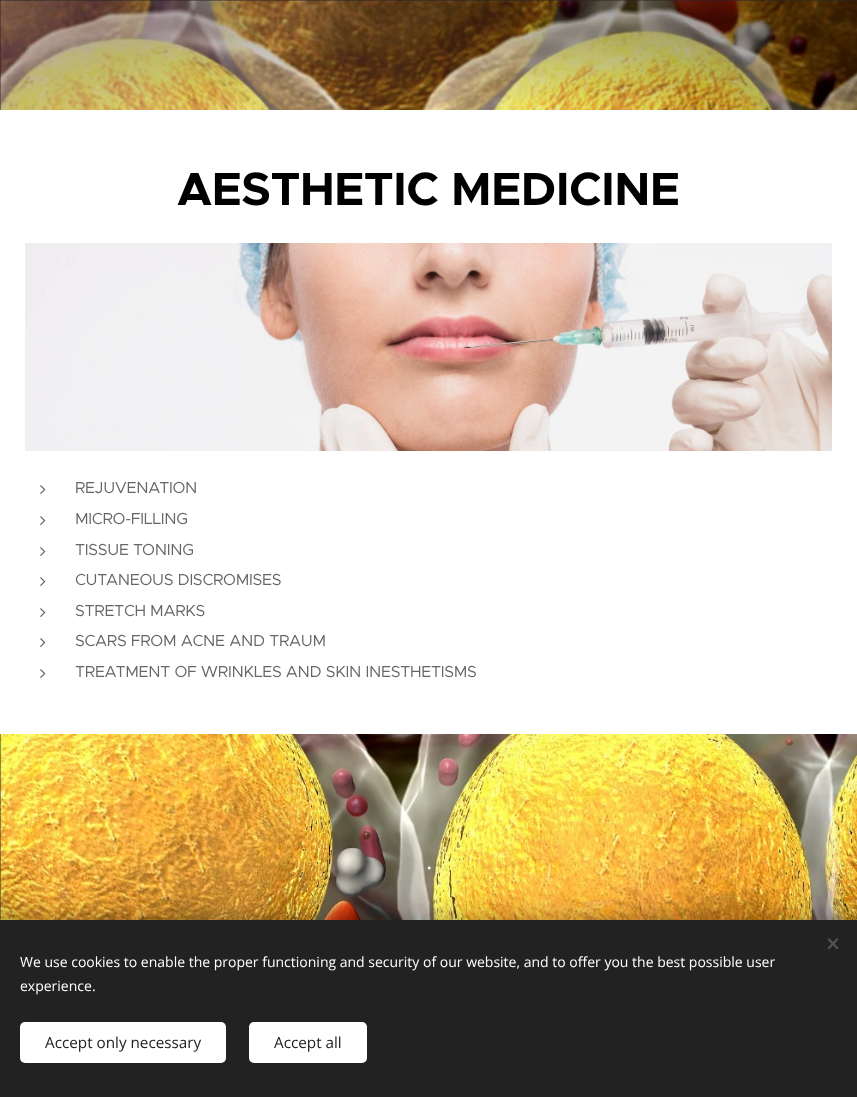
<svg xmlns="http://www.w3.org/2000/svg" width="857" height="1097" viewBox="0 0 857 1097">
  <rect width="100%" height="100%" fill="#fff"/>
  <path d="M0 0h857v110H0z" fill="#272727"/>
  <image x="0" y="0" width="857" height="110" href="img/1.png"/>
  <image x="25" y="243" width="807" height="208" href="img/2.png"/>
  <image x="40" y="485" width="6" height="9" href="img/3.png"/>
  <image x="40" y="516" width="6" height="9" href="img/3.png"/>
  <image x="40" y="547" width="6" height="9" href="img/3.png"/>
  <image x="40" y="577" width="6" height="9" href="img/3.png"/>
  <image x="40" y="608" width="6" height="9" href="img/3.png"/>
  <image x="40" y="638" width="6" height="9" href="img/3.png"/>
  <image x="40" y="669" width="6" height="9" href="img/3.png"/>
  <path d="M0 734h1v186H0z" fill="#272727"/>
  <image x="0" y="734" width="857" height="186" href="img/4.png"/>
  <path d="M0 920h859v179H0z" fill="#00000054" filter="blur(12.5px)"/>
  <path d="M0 920h857v177H0z" fill="#222"/>
  <path d="M827.5 948L837 938L838.5 939.5L829 949.5Z" fill="#555"/>
  <path d="M829 938L838.5 948L837 949.5L827.5 939.5Z" fill="#555"/>
  <rect x="20" y="1022" width="206" height="41" rx="5" fill="#fff"/>
  <rect x="249" y="1022" width="118" height="41" rx="5" fill="#fff"/>
  <text x="177" y="205" font-family="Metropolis" font-size="46.75" font-weight="bold" letter-spacing="-0.4" fill="#000">AESTHETIC MEDICINE</text>
  <g font-family="Metropolis" font-size="16" letter-spacing="-0.3" fill="#666">
    <text x="75" y="493">REJUVENATION</text>
    <text x="75" y="524">MICRO-FILLING</text>
    <text x="75" y="555">TISSUE TONING</text>
    <text x="75" y="585">CUTANEOUS DISCROMISES</text>
    <text x="75" y="616">STRETCH MARKS</text>
    <text x="75" y="646">SCARS FROM ACNE AND TRAUM</text>
    <text x="75" y="677">TREATMENT OF WRINKLES AND SKIN INESTHETISMS</text>
  </g>
  <text x="425" y="869" font-family="Metropolis" font-size="38" font-weight="200" fill="#fff">.</text>
  <g font-family="Open Sans" font-size="14" fill="#fff">
    <text x="20" y="967">We use cookies to enable the proper functioning and security of our website, and to offer you the best possible user</text>
    <text x="20" y="991">experience.</text>
  </g>
  <g font-family="Open Sans" font-size="15.25" fill="#222">
    <text x="45" y="1048">Accept only necessary</text>
    <text x="274" y="1048">Accept all</text>
  </g>
</svg>
